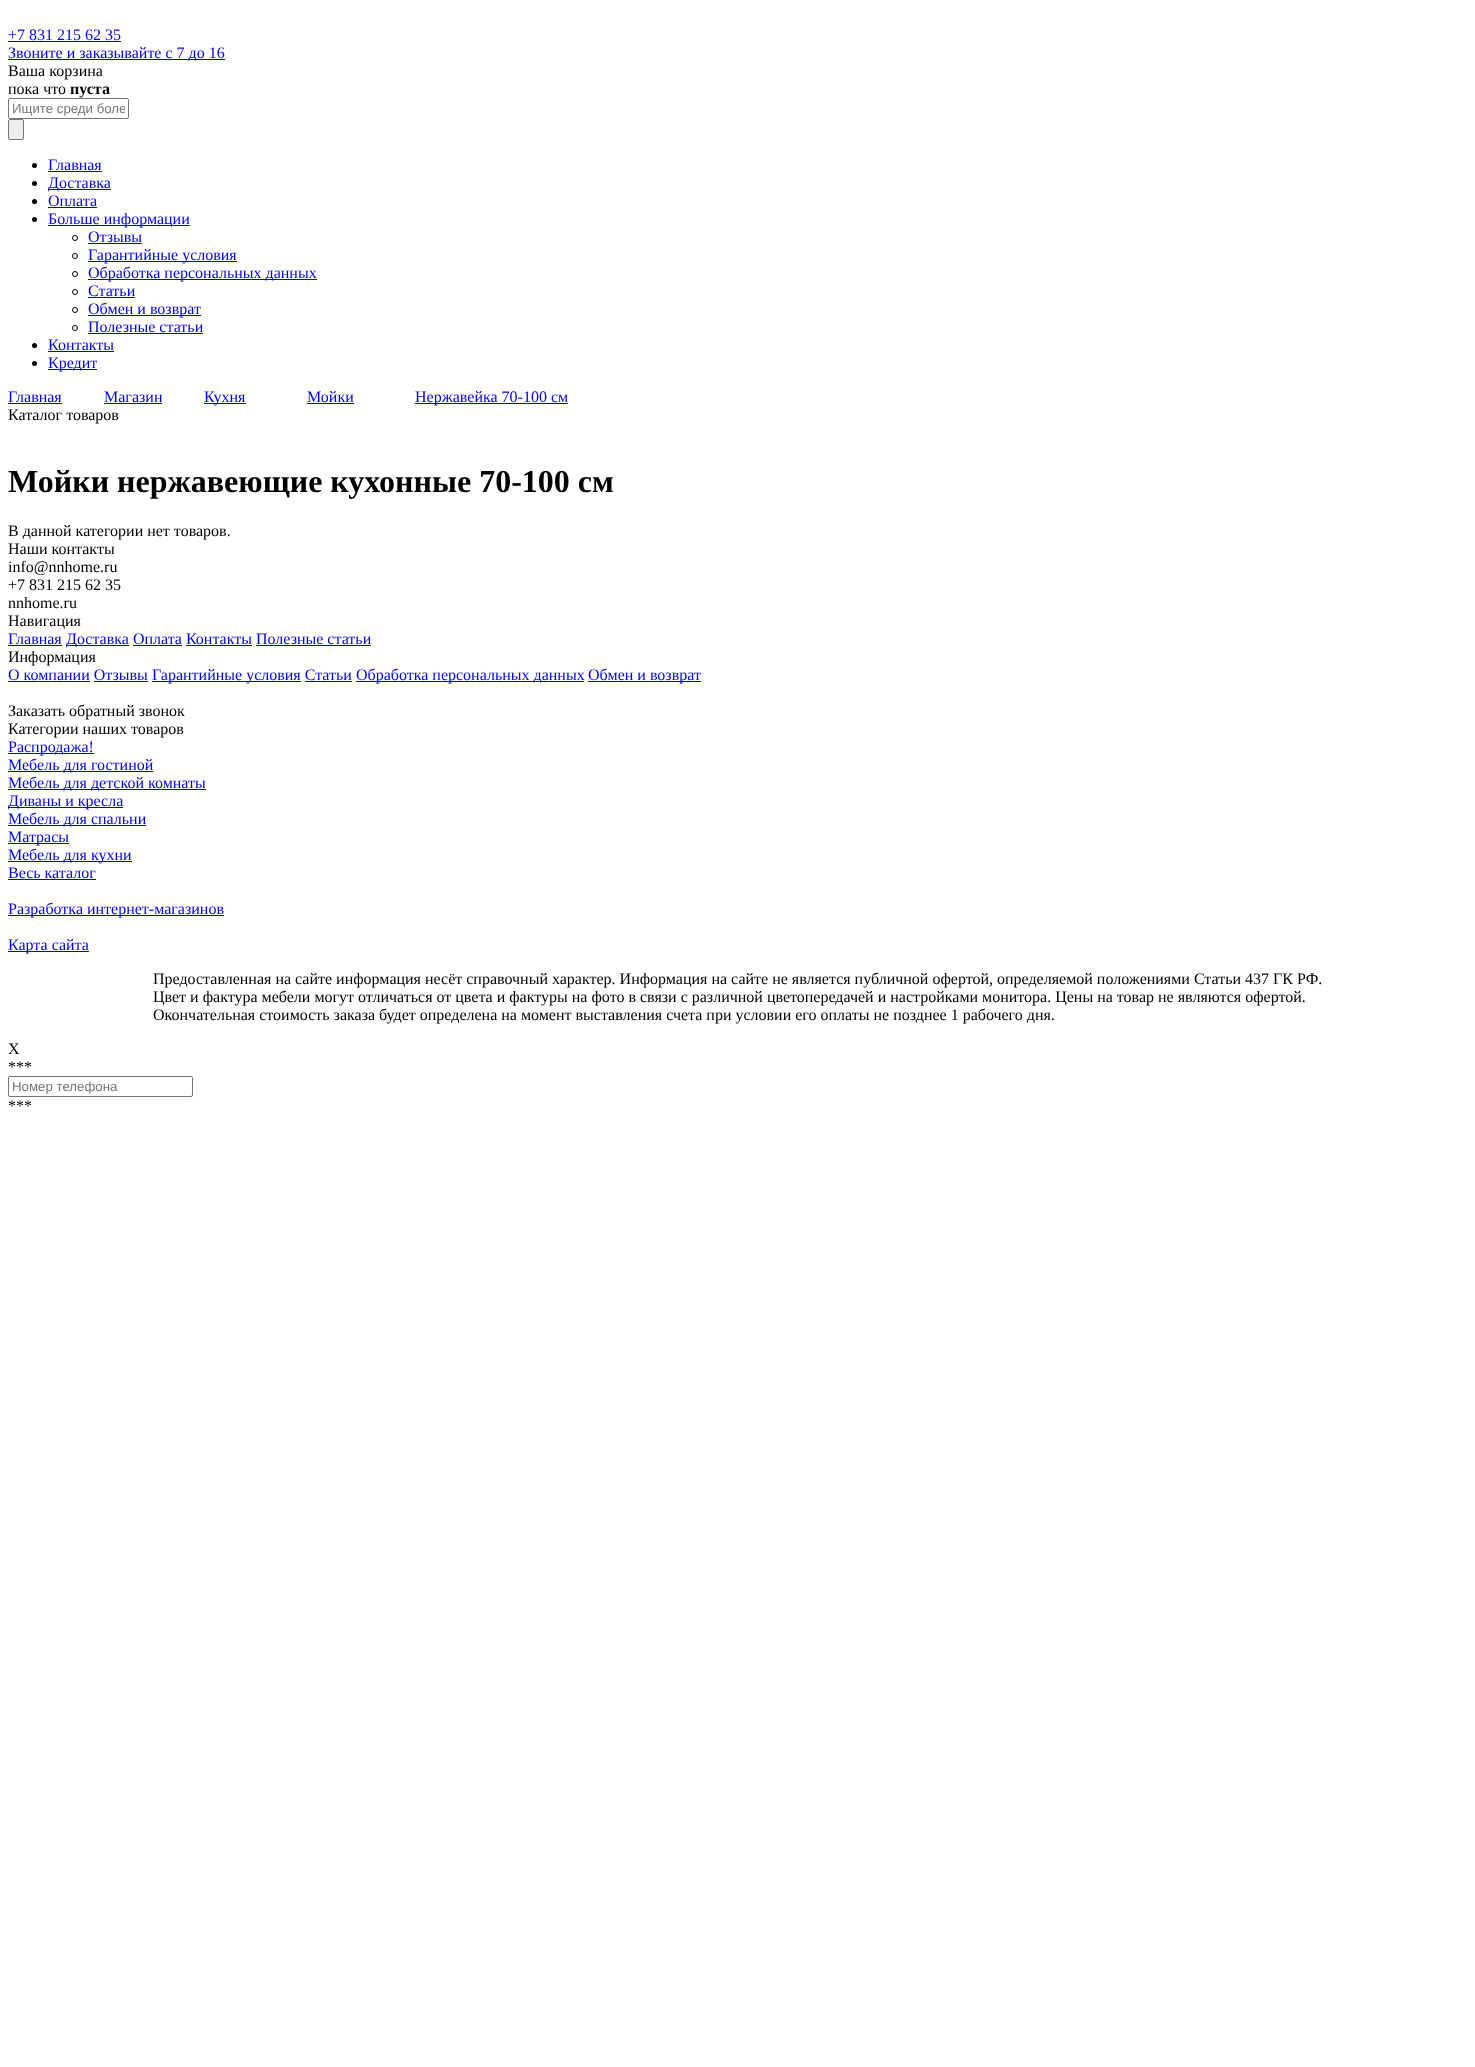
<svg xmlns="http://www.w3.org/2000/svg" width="1475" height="2067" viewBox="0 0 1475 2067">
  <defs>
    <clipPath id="clip1"><path d="M12 101h113v15H12z"/></clipPath>
  </defs>
  <rect width="100%" height="100%" fill="#fff"/>
  <path d="M8 41h113v1H8z" fill="#00e"/>
  <path d="M8 59h217v1H8z" fill="#00e"/>
  <rect x="8.5" y="98.5" width="120" height="20" rx="1.5" fill="none" stroke="#767676"/>
  <rect x="8.5" y="119.5" width="15" height="20" rx="1.5" fill="#efefef" stroke="#767676"/>
  <circle cx="34.5" cy="165.5" r="2.5" fill="#000"/>
  <path d="M48 171h54v1H48z" fill="#00e"/>
  <circle cx="34.5" cy="183.5" r="2.5" fill="#000"/>
  <path d="M48 189h63v1H48z" fill="#00e"/>
  <circle cx="34.5" cy="201.5" r="2.5" fill="#000"/>
  <path d="M48 207h49v1H48z" fill="#00e"/>
  <circle cx="34.5" cy="219.5" r="2.5" fill="#000"/>
  <path d="M48 225h142v1H48z" fill="#00e"/>
  <circle cx="75" cy="238" r="2.5" fill="none" stroke="#000"/>
  <path d="M88 243h54v1H88z" fill="#00e"/>
  <circle cx="75" cy="256" r="2.5" fill="none" stroke="#000"/>
  <path d="M88 261h149v1H88z" fill="#00e"/>
  <circle cx="75" cy="274" r="2.5" fill="none" stroke="#000"/>
  <path d="M88 279h229v1H88z" fill="#00e"/>
  <circle cx="75" cy="292" r="2.5" fill="none" stroke="#000"/>
  <path d="M88 297h47v1H88z" fill="#00e"/>
  <circle cx="75" cy="310" r="2.5" fill="none" stroke="#000"/>
  <path d="M88 315h113v1H88z" fill="#00e"/>
  <circle cx="75" cy="328" r="2.5" fill="none" stroke="#000"/>
  <path d="M88 333h115v1H88z" fill="#00e"/>
  <circle cx="34.5" cy="345.5" r="2.5" fill="#000"/>
  <path d="M48 351h66v1H48z" fill="#00e"/>
  <circle cx="34.5" cy="363.5" r="2.5" fill="#000"/>
  <path d="M48 369h49v1H48z" fill="#00e"/>
  <path d="M8 403h54v1H8z" fill="#00e"/>
  <path d="M104 403h58v1H104z" fill="#00e"/>
  <path d="M204 403h42v1H204z" fill="#00e"/>
  <path d="M307 403h47v1H307z" fill="#00e"/>
  <path d="M415 403h153v1H415z" fill="#00e"/>
  <path d="M8 645h54v1H8z" fill="#00e"/>
  <path d="M66 645h63v1H66z" fill="#00e"/>
  <path d="M133 645h49v1H133z" fill="#00e"/>
  <path d="M186 645h66v1H186z" fill="#00e"/>
  <path d="M256 645h115v1H256z" fill="#00e"/>
  <path d="M8 681h82v1H8z" fill="#00e"/>
  <path d="M152 681h149v1H152z" fill="#00e"/>
  <path d="M356 681h228v1H356z" fill="#00e"/>
  <path d="M588 681h113v1H588z" fill="#00e"/>
  <path d="M94 681h54v1H94z" fill="#00e"/>
  <path d="M305 681h47v1H305z" fill="#00e"/>
  <path d="M8 753h86v1H8z" fill="#00e"/>
  <path d="M8 771h145v1H8z" fill="#00e"/>
  <path d="M8 789h198v1H8z" fill="#00e"/>
  <path d="M8 807h115v1H8z" fill="#00e"/>
  <path d="M8 825h138v1H8z" fill="#00e"/>
  <path d="M8 843h61v1H8z" fill="#00e"/>
  <path d="M8 861h124v1H8z" fill="#00e"/>
  <path d="M8 879h88v1H8z" fill="#00e"/>
  <path d="M8 915h216v1H8z" fill="#00e"/>
  <path d="M8 951h81v1H8z" fill="#00e"/>
  <rect x="8.5" y="1076.5" width="184" height="20" rx="1.5" fill="none" stroke="#767676"/>
  <g font-family="Liberation Serif" font-size="16" fill="#00e">
    <text x="8" y="40">+7 831 215 62 35</text>
    <text x="8" y="58">Звоните и заказывайте с 7 до 16</text>
  </g>
  <g font-family="Liberation Serif" font-size="16" fill="#000">
    <text x="8" y="76">Ваша корзина</text>
    <text x="8" y="94">пока что</text>
  </g>
  <text x="70" y="94" font-family="Liberation Serif" font-size="16" font-weight="bold" fill="#000">пуста</text>
  <g clip-path="url(#clip1)">
    <text x="12" y="113" font-family="Liberation Sans" font-size="13.25" fill="#757575">Ищите среди боле</text>
  </g>
  <g font-family="Liberation Serif" font-size="16" fill="#00e">
    <text x="48" y="170">Главная</text>
    <text x="48" y="188">Доставка</text>
    <text x="48" y="206">Оплата</text>
    <text x="48" y="224">Больше информации</text>
    <text x="88" y="242">Отзывы</text>
    <text x="88" y="260">Гарантийные условия</text>
    <text x="88" y="278">Обработка персональных данных</text>
    <text x="88" y="296">Статьи</text>
    <text x="88" y="314">Обмен и возврат</text>
    <text x="88" y="332">Полезные статьи</text>
    <text x="48" y="350">Контакты</text>
    <text x="48" y="368">Кредит</text>
    <text x="8" y="402">Главная</text>
    <text x="104" y="402">Магазин</text>
    <text x="204" y="402">Кухня</text>
    <text x="307" y="402">Мойки</text>
    <text x="415" y="402">Нержавейка 70-100 см</text>
  </g>
  <text x="8" y="420" font-family="Liberation Serif" font-size="16" fill="#000">Каталог товаров</text>
  <text x="8" y="492" font-family="Liberation Serif" font-size="32" font-weight="bold" fill="#000">Мойки нержавеющие кухонные 70-100 см</text>
  <g font-family="Liberation Serif" font-size="16" fill="#000">
    <text x="8" y="536">В данной категории нет товаров.</text>
    <text x="8" y="554">Наши контакты</text>
    <text x="8" y="572">info@nnhome.ru</text>
    <text x="8" y="590">+7 831 215 62 35</text>
    <text x="8" y="608">nnhome.ru</text>
    <text x="8" y="626">Навигация</text>
  </g>
  <g font-family="Liberation Serif" font-size="16" fill="#00e">
    <text x="8" y="644">Главная</text>
    <text x="66" y="644">Доставка Оплата Контакты Полезные статьи</text>
  </g>
  <text x="8" y="662" font-family="Liberation Serif" font-size="16" fill="#000">Информация</text>
  <g font-family="Liberation Serif" font-size="16" fill="#00e">
    <text x="8" y="680">О компании Отзывы</text>
    <text x="152" y="680">Гарантийные условия Статьи</text>
    <text x="356" y="680">Обработка персональных данных</text>
    <text x="588" y="680">Обмен и возврат</text>
  </g>
  <g font-family="Liberation Serif" font-size="16" fill="#000">
    <text x="8" y="716">Заказать обратный звонок</text>
    <text x="8" y="734">Категории наших товаров</text>
  </g>
  <g font-family="Liberation Serif" font-size="16" fill="#00e">
    <text x="8" y="752">Распродажа!</text>
    <text x="8" y="770">Мебель для гостиной</text>
    <text x="8" y="788">Мебель для детской комнаты</text>
    <text x="8" y="806">Диваны и кресла</text>
    <text x="8" y="824">Мебель для спальни</text>
    <text x="8" y="842">Матрасы</text>
    <text x="8" y="860">Мебель для кухни</text>
    <text x="8" y="878">Весь каталог</text>
    <text x="8" y="914">Разработка интернет-магазинов</text>
    <text x="8" y="950">Карта сайта</text>
  </g>
  <g font-family="Liberation Serif" font-size="16" fill="#000">
    <text x="153" y="984">Предоставленная на сайте информация несёт справочный характер. Информация на сайте не является публичной офертой, определяемой положениями Статьи 437 ГК РФ.</text>
    <text x="153" y="1002">Цвет и фактура мебели могут отличаться от цвета и фактуры на фото в связи с различной цветопередачей и настройками монитора. Цены на товар не являются офертой.</text>
    <text x="153" y="1020">Окончательная стоимость заказа будет определена на момент выставления счета при условии его оплаты не позднее 1 рабочего дня.</text>
    <text x="8" y="1054">X</text>
    <text x="8" y="1072">***</text>
  </g>
  <text x="12" y="1091" font-family="Liberation Sans" font-size="13.25" fill="#757575">Номер телефона</text>
  <text x="8" y="1111" font-family="Liberation Serif" font-size="16" fill="#000">***</text>
</svg>
